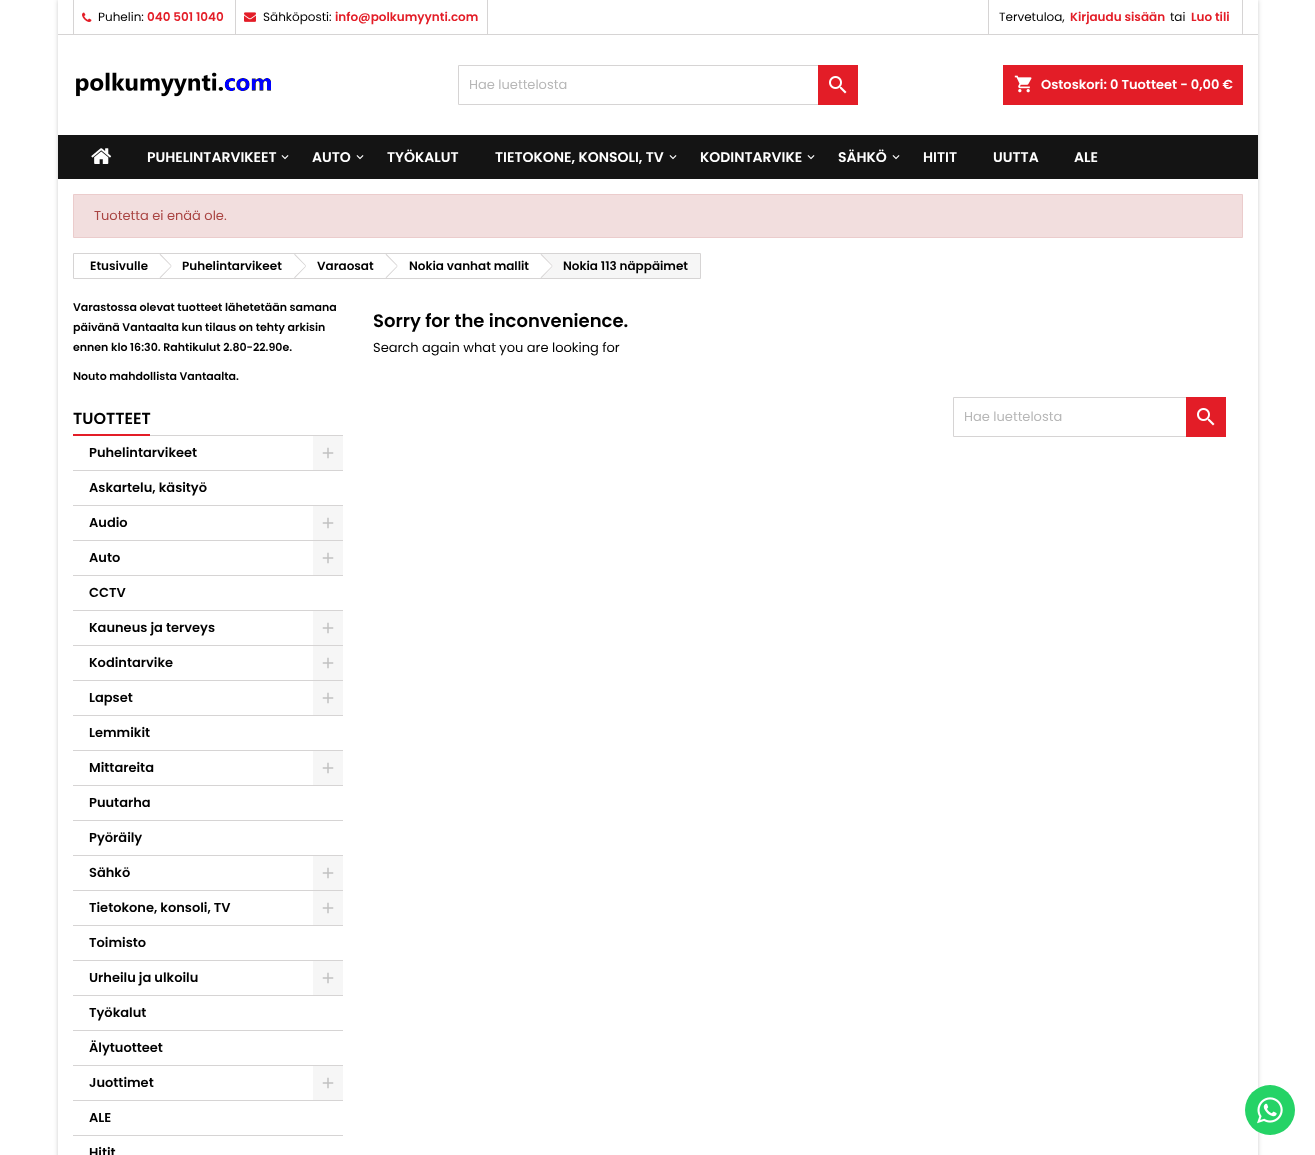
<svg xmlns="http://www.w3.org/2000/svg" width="1315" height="1155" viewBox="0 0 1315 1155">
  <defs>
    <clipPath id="clip1"><path d="M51 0H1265V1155H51ZM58 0H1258V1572H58Z" clip-rule="evenodd"/></clipPath>
  </defs>
  <rect width="100%" height="100%" fill="#fff"/>
  <g clip-path="url(#clip1)">
    <path d="M58 0h1200v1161H58z" fill="#00000033" filter="blur(2px)"/>
  </g>
  <path d="M58 34h1200v1H58z" fill="#d6d4d4"/>
  <path d="M73 0h1v34H73z" fill="#d6d4d4"/>
  <image x="82" y="12" width="10" height="10" href="img/1.png"/>
  <path d="M487 0h1v34H487z" fill="#d6d4d4"/>
  <path d="M235 0h1v34H235z" fill="#d6d4d4"/>
  <image x="244" y="12" width="12" height="10" href="img/2.png"/>
  <path d="M1242 0h1v34H1242z" fill="#d6d4d4"/>
  <path d="M988 0h1v34H988z" fill="#d6d4d4"/>
  <image x="76" y="72" width="195" height="25" href="img/3.png"/>
  <path d="M458.5 65.5h399v39H458.5z" fill="none" stroke="#d6d4d4"/>
  <path d="M818 65h40v40H818z" fill="#e31d27"/>
  <image x="829" y="76" width="18" height="18" href="img/4.png"/>
  <path d="M1003 65h240v40H1003z" fill="#e31d27"/>
  <image x="1014" y="75" width="18" height="18" href="img/5.png"/>
  <path d="M58 135h1200v44H58z" fill="#141414"/>
  <image x="91" y="148" width="21" height="16" href="img/6.png"/>
  <image x="281" y="155" width="8" height="5" href="img/7.png"/>
  <image x="356" y="155" width="8" height="5" href="img/7.png"/>
  <image x="669" y="155" width="8" height="5" href="img/7.png"/>
  <image x="807" y="155" width="8" height="5" href="img/7.png"/>
  <image x="892" y="155" width="8" height="5" href="img/7.png"/>
  <path d="M73.5 194.5h1169v43H73.5z" fill="#f2dede" stroke="#ebcccc"/>
  <path d="M73.5 253.5h627v25H73.5z" fill="none" stroke="#d6d4d4"/>
  <path d="M295 254L306 265.5L305.5 266L294 254.5ZM305.5 266L306 266.5L295 278L294 277.5Z" fill="#d6d4d4"/>
  <path d="M386.5 254L397.5 265.5L397 266L385.5 254.5ZM397 266L397.5 266.5L386.5 278L385.5 277.5Z" fill="#d6d4d4"/>
  <path d="M541 254h159v24H541z" fill="#f6f6f6"/>
  <path d="M150 435h193v1H150z" fill="#d6d4d4"/>
  <path d="M73 434h77v2H73z" fill="#e31d27"/>
  <path d="M73 470h270v1H73z" fill="#d6d4d4"/>
  <path d="M313 436h30v34H313z" fill="#f6f6f6"/>
  <image x="322" y="447" width="12" height="12" href="img/8.png"/>
  <path d="M73 505h270v1H73z" fill="#d6d4d4"/>
  <path d="M73 540h270v1H73z" fill="#d6d4d4"/>
  <path d="M313 506h30v34H313z" fill="#f6f6f6"/>
  <image x="322" y="517" width="12" height="12" href="img/8.png"/>
  <path d="M73 575h270v1H73z" fill="#d6d4d4"/>
  <path d="M313 541h30v34H313z" fill="#f6f6f6"/>
  <image x="322" y="552" width="12" height="12" href="img/8.png"/>
  <path d="M73 610h270v1H73z" fill="#d6d4d4"/>
  <path d="M73 645h270v1H73z" fill="#d6d4d4"/>
  <path d="M313 611h30v34H313z" fill="#f6f6f6"/>
  <image x="322" y="622" width="12" height="12" href="img/8.png"/>
  <path d="M73 680h270v1H73z" fill="#d6d4d4"/>
  <path d="M313 646h30v34H313z" fill="#f6f6f6"/>
  <image x="322" y="657" width="12" height="12" href="img/8.png"/>
  <path d="M73 715h270v1H73z" fill="#d6d4d4"/>
  <path d="M313 681h30v34H313z" fill="#f6f6f6"/>
  <image x="322" y="692" width="12" height="12" href="img/8.png"/>
  <path d="M73 750h270v1H73z" fill="#d6d4d4"/>
  <path d="M73 785h270v1H73z" fill="#d6d4d4"/>
  <path d="M313 751h30v34H313z" fill="#f6f6f6"/>
  <image x="322" y="762" width="12" height="12" href="img/8.png"/>
  <path d="M73 820h270v1H73z" fill="#d6d4d4"/>
  <path d="M73 855h270v1H73z" fill="#d6d4d4"/>
  <path d="M73 890h270v1H73z" fill="#d6d4d4"/>
  <path d="M313 856h30v34H313z" fill="#f6f6f6"/>
  <image x="322" y="867" width="12" height="12" href="img/8.png"/>
  <path d="M73 925h270v1H73z" fill="#d6d4d4"/>
  <path d="M313 891h30v34H313z" fill="#f6f6f6"/>
  <image x="322" y="902" width="12" height="12" href="img/8.png"/>
  <path d="M73 960h270v1H73z" fill="#d6d4d4"/>
  <path d="M73 995h270v1H73z" fill="#d6d4d4"/>
  <path d="M313 961h30v34H313z" fill="#f6f6f6"/>
  <image x="322" y="972" width="12" height="12" href="img/8.png"/>
  <path d="M73 1030h270v1H73z" fill="#d6d4d4"/>
  <path d="M73 1065h270v1H73z" fill="#d6d4d4"/>
  <path d="M73 1100h270v1H73z" fill="#d6d4d4"/>
  <path d="M313 1066h30v34H313z" fill="#f6f6f6"/>
  <image x="322" y="1077" width="12" height="12" href="img/8.png"/>
  <path d="M73 1135h270v1H73z" fill="#d6d4d4"/>
  <path d="M953.5 397.5h272v39H953.5z" fill="none" stroke="#d6d4d4"/>
  <path d="M1186 397h40v40H1186z" fill="#e31d27"/>
  <image x="1197" y="408" width="18" height="18" href="img/4.png"/>
  <circle cx="1270" cy="1110" r="25" fill="#25d366"/>
  <image x="1257" y="1097" width="26" height="27" href="img/9.png"/>
  <text x="98" y="21" font-family="Poppins" font-size="12" fill="#000">Puhelin:</text>
  <text x="147" y="21" font-family="Poppins" font-size="12" font-weight="600" fill="#e31d27">040 501 1040</text>
  <text x="263" y="21" font-family="Poppins" font-size="12" fill="#000">Sähköposti:</text>
  <text x="335" y="21" font-family="Poppins" font-size="12" font-weight="600" fill="#e31d27">info@polkumyynti.com</text>
  <text x="999" y="21" font-family="Poppins" font-size="12" fill="#000">Tervetuloa,</text>
  <text x="1070" y="21" font-family="Poppins" font-size="12" font-weight="600" fill="#e31d27">Kirjaudu sisään</text>
  <text x="1170" y="21" font-family="Poppins" font-size="12" fill="#000">tai</text>
  <text x="1191" y="21" font-family="Poppins" font-size="12" font-weight="600" fill="#e31d27">Luo tili</text>
  <text x="469" y="89" font-family="Poppins" font-size="13" fill="#b7b7b7">Hae luettelosta</text>
  <text x="1041" y="89" font-family="Poppins" font-size="13" font-weight="600" fill="#fff">Ostoskori: 0 Tuotteet - 0,00 €</text>
  <g font-family="Poppins" font-size="14" font-weight="600" fill="#fff">
    <text x="147" y="162">PUHELINTARVIKEET</text>
    <text x="312" y="162">AUTO</text>
    <text x="387" y="162">TYÖKALUT</text>
    <text x="495" y="162">TIETOKONE, KONSOLI, TV</text>
    <text x="700" y="162">KODINTARVIKE</text>
    <text x="838" y="162">SÄHKÖ</text>
    <text x="923" y="162">HITIT</text>
    <text x="993" y="162">UUTTA</text>
    <text x="1074" y="162">ALE</text>
  </g>
  <text x="94" y="220" font-family="Poppins" font-size="13" fill="#a94442">Tuotetta ei enää ole.</text>
  <text x="90" y="270" font-family="Poppins" font-size="12" font-weight="600" fill="#000">Etusivulle</text>
  <path d="M161 254.5L171 264.5C171.5 265.5 171.5 266.5 171 267.5L161 277.5C160 278 159 278 158 277.5L148 267.5C147.5 266.5 147.5 265.5 148 264.5L158 254.5C159 254 160 254 161 254.5Z" fill="#fff"/>
  <path d="M160.5 254L171.5 265.5L171 266L159.5 254.5ZM171 266L171.5 266.5L160.5 278L159.5 277.5Z" fill="#d6d4d4"/>
  <g font-family="Poppins" font-size="12" font-weight="600" fill="#000">
    <text x="182" y="270">Puhelintarvikeet</text>
    <text x="317" y="270">Varaosat</text>
    <text x="409" y="270">Nokia vanhat mallit</text>
  </g>
  <path d="M542 254.5L552 264.5C552.5 265.5 552.5 266.5 552 267.5L542 277.5C541 278 540 278 539 277.5L529.5 267.5C528.5 266.5 528.5 265.5 529.5 264.5L539 254.5C540 254 541 254 542 254.5Z" fill="#fff"/>
  <path d="M541.5 254L552.5 265.5L552 266L540.5 254.5ZM552 266L552.5 266.5L541.5 278L540.5 277.5Z" fill="#d6d4d4"/>
  <text x="563" y="270" font-family="Poppins" font-size="12" font-weight="600" fill="#000">Nokia 113 näppäimet</text>
  <g font-family="Poppins" font-size="11" font-weight="600" fill="#000">
    <text x="73" y="311">Varastossa olevat tuotteet lähetetään samana</text>
    <text x="73" y="331">päivänä Vantaalta kun tilaus on tehty arkisin</text>
    <text x="73" y="351">ennen klo 16:30. Rahtikulut 2.80-22.90e.</text>
    <text x="73" y="380">Nouto mahdollista Vantaalta.</text>
  </g>
  <text x="73" y="424" font-family="Poppins" font-size="16" font-weight="600" fill="#000">TUOTTEET</text>
  <g font-family="Poppins" font-size="13" font-weight="600" fill="#000">
    <text x="89" y="457">Puhelintarvikeet</text>
    <text x="89" y="492">Askartelu, käsityö</text>
    <text x="89" y="527">Audio</text>
    <text x="89" y="562">Auto</text>
    <text x="89" y="597">CCTV</text>
    <text x="89" y="632">Kauneus ja terveys</text>
    <text x="89" y="667">Kodintarvike</text>
    <text x="89" y="702">Lapset</text>
    <text x="89" y="737">Lemmikit</text>
    <text x="89" y="772">Mittareita</text>
    <text x="89" y="807">Puutarha</text>
    <text x="89" y="842">Pyöräily</text>
    <text x="89" y="877">Sähkö</text>
    <text x="89" y="912">Tietokone, konsoli, TV</text>
    <text x="89" y="947">Toimisto</text>
    <text x="89" y="982">Urheilu ja ulkoilu</text>
    <text x="89" y="1017">Työkalut</text>
    <text x="89" y="1052">Älytuotteet</text>
    <text x="89" y="1087">Juottimet</text>
    <text x="89" y="1122">ALE</text>
    <text x="89" y="1157">Hitit</text>
  </g>
  <text x="373" y="327" font-family="Poppins" font-size="18" font-weight="600" fill="#000">Sorry for the inconvenience.</text>
  <text x="373" y="352" font-family="Poppins" font-size="13" fill="#000">Search again what you are looking for</text>
  <text x="964" y="421" font-family="Poppins" font-size="13" fill="#b7b7b7">Hae luettelosta</text>
</svg>
